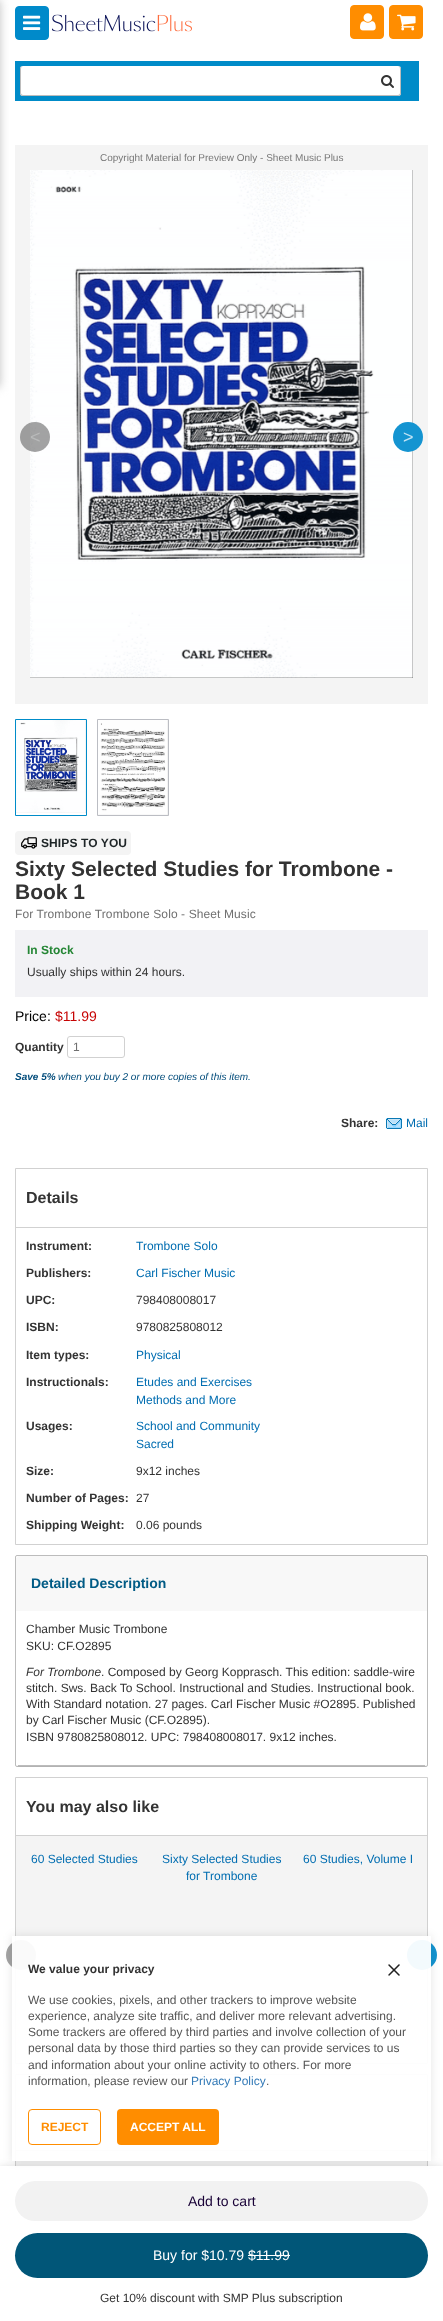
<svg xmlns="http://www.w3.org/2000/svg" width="443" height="2321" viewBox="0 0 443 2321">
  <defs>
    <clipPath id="clip1"><path d="M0 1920H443V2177H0ZM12 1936H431V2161H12Z" clip-rule="evenodd"/></clipPath>
  </defs>
  <rect width="100%" height="100%" fill="#fff"/>
  <rect x="15.5" y="6.5" width="33" height="33" rx="3.5" fill="#008aca" stroke="#008aca"/>
  <path d="M15 145h413v559H15z" fill="#f4f4f4"/>
  <path d="M-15 0h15v387H-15z" fill="#c3c3c3" filter="blur(5px)"/>
  <image x="23" y="15" width="18" height="15" href="img/1.png"/>
  <image x="52" y="14" width="140" height="18" href="img/2.png"/>
  <rect x="350.5" y="5.5" width="33" height="33" rx="3.5" fill="#ff8d00" stroke="#ff8d00"/>
  <image x="360" y="13" width="16" height="18" href="img/3.png"/>
  <rect x="389.5" y="5.5" width="33" height="33" rx="3.5" fill="#ff8d00" stroke="#ff8d00"/>
  <image x="397" y="14" width="19" height="17" href="img/4.png"/>
  <path d="M15 61h404v40H15z" fill="#008bc8"/>
  <rect x="20" y="66" width="381" height="30" rx="3" fill="#fff"/>
  <path d="M23 66H398C400 66 401 67 401 69V93C401 95 400 96 398 96H23C21 96 20 95 20 93V69C20 67 21 66 23 66ZM23 66H398C399 66 400 67 400 69V93C400 94 399 95 398 95H23C22 95 21 94 21 93V69C21 67 22 66 23 66Z" fill="#bcbcbc" fill-rule="evenodd"/>
  <image x="381" y="75" width="13" height="13" href="img/5.png"/>
  <image x="30" y="170" width="383" height="508" href="img/6.png"/>
  <circle cx="35" cy="437" r="15" fill="#33333373"/>
  <circle cx="408" cy="437" r="15" fill="#1494d1"/>
  <path d="M15.5 719.5h71v96H15.5z" fill="none" stroke="#008cc9"/>
  <image x="16" y="720" width="70" height="93" href="img/7.png"/>
  <path d="M97.5 719.5h71v96H97.5z" fill="none" stroke="#bbbdc3"/>
  <image x="98" y="720" width="70" height="95" href="img/8.png"/>
  <rect x="15" y="831" width="116" height="24" rx="4" fill="#f4f4f4"/>
  <image x="21" y="837" width="16" height="12" href="img/9.png"/>
  <path d="M15 930h413v67H15z" fill="#f2f2f5"/>
  <rect x="67.5" y="1036.5" width="57" height="21" rx="2.5" fill="none" stroke="#d1d1d1"/>
  <path d="M15.5 2074.5h412v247H15.5z" fill="none" stroke="#d1d1d1"/>
  <path d="M16 2151h411v15H16z" fill="#f4f4f4"/>
  <path d="M0 2168h443v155H0z" fill="#00000033" filter="blur(5px)"/>
  <path d="M0 2166h443v155H0z" fill="#fff"/>
  <rect x="15" y="2181" width="413" height="40" rx="20" fill="#f2f2f2"/>
  <rect x="15" y="2233" width="413" height="45" rx="22.5" fill="#015678"/>
  <path d="M248 2255h42v1H248z" fill="#fff"/>
  <image x="386" y="1118" width="16" height="11" href="img/10.png"/>
  <path d="M15.5 1168.5h412v376H15.5z" fill="none" stroke="#d1d1d1"/>
  <path d="M16 1227h411v1H16z" fill="#d1d1d1"/>
  <rect x="15.5" y="1555.5" width="412" height="211" rx="1.5" fill="none" stroke="#bcbcbc"/>
  <rect x="16" y="1557" width="411" height="210" rx="4" fill="#0000000d" filter="blur(0.5px)"/>
  <rect x="16" y="1556" width="411" height="210" rx="4" fill="#f8f8f8"/>
  <path d="M18 1765h407v1H18z" fill="#bcbcbc"/>
  <path d="M16 1611h411v154H16z" fill="#fff"/>
  <path d="M15.5 1777.5h412v286H15.5z" fill="none" stroke="#d1d1d1"/>
  <path d="M16 1835h411v1H16z" fill="#d1d1d1"/>
  <path d="M16 1836h411v227H16z" fill="#f4f4f4"/>
  <circle cx="21" cy="1955" r="15" fill="#33333373"/>
  <circle cx="422" cy="1955" r="15" fill="#1494d1"/>
  <path d="M16 2150h411v1H16z" fill="#d1d1d1"/>
  <g clip-path="url(#clip1)">
    <path d="M12 1936h419v225H12z" fill="#0000001a" filter="blur(5px)"/>
  </g>
  <path d="M12 1936h419v225H12z" fill="#fffffff2"/>
  <image x="388" y="1964" width="12" height="12" href="img/11.png"/>
  <rect x="28.5" y="2109.5" width="72" height="35" rx="3.5" fill="none" stroke="#ff8d00"/>
  <rect x="117" y="2109" width="102" height="36" rx="4" fill="#ff8d00"/>
  <text x="100" y="161" font-family="Liberation Sans" font-size="10" fill="#777">Copyright Material for Preview Only - Sheet Music Plus</text>
  <text x="30" y="443" font-family="Liberation Sans" font-size="18" fill="#b9baba">&lt;</text>
  <text x="403" y="443" font-family="Liberation Sans" font-size="18" fill="#c4e4f4">&gt;</text>
  <text x="41" y="847" font-family="Liberation Sans" font-size="12" font-weight="bold" letter-spacing="0.1" fill="#1e2527">SHIPS TO YOU</text>
  <g font-family="Liberation Sans" font-size="21" font-weight="bold" fill="#333">
    <text x="15" y="876">Sixty Selected Studies for Trombone -</text>
    <text x="15" y="899">Book 1</text>
  </g>
  <text x="15" y="918" font-family="Liberation Sans" font-size="12" letter-spacing="0.1" fill="#707070">For Trombone Trombone Solo - Sheet Music</text>
  <text x="27" y="954" font-family="Liberation Sans" font-size="12" font-weight="bold" fill="#258635">In Stock</text>
  <text x="27" y="976" font-family="Liberation Sans" font-size="12" fill="#333">Usually ships within 24 hours.</text>
  <text x="15" y="1021" font-family="Liberation Sans" font-size="14" fill="#000">Price:</text>
  <text x="55" y="1021" font-family="Liberation Sans" font-size="14" fill="#c60202">$11.99</text>
  <text x="15" y="1051" font-family="Liberation Sans" font-size="12" font-weight="bold" fill="#333">Quantity</text>
  <text x="73" y="1051" font-family="Liberation Sans" font-size="12" fill="#707070">1</text>
  <text x="15" y="1080" font-family="Liberation Sans" font-size="10" font-weight="bold" font-style="italic" fill="#004b7a">Save 5%</text>
  <text x="58" y="1080" font-family="Liberation Sans" font-size="10" font-style="italic" fill="#004b7a">when you buy 2 or more copies of this item.</text>
  <text x="188" y="2206" font-family="Liberation Sans" font-size="14" fill="#180036">Add to cart</text>
  <text x="153" y="2260" font-family="Liberation Sans" font-size="14" fill="#fff">Buy for $10.79 $11.99</text>
  <text x="100" y="2302" font-family="Liberation Sans" font-size="12" fill="#333">Get 10% discount with SMP Plus subscription</text>
  <text x="341" y="1127" font-family="Liberation Sans" font-size="12" font-weight="bold" fill="#333">Share:</text>
  <text x="406" y="1127" font-family="Liberation Sans" font-size="12" fill="#006db1">Mail</text>
  <text x="26" y="1203" font-family="Liberation Sans" font-size="16" font-weight="bold" fill="#333">Details</text>
  <text x="26" y="1250" font-family="Liberation Sans" font-size="12" font-weight="bold" fill="#333">Instrument:</text>
  <text x="136" y="1250" font-family="Liberation Sans" font-size="12" fill="#006db1">Trombone Solo</text>
  <text x="26" y="1277" font-family="Liberation Sans" font-size="12" font-weight="bold" fill="#333">Publishers:</text>
  <text x="136" y="1277" font-family="Liberation Sans" font-size="12" fill="#006db1">Carl Fischer Music</text>
  <text x="26" y="1304" font-family="Liberation Sans" font-size="12" font-weight="bold" fill="#333">UPC:</text>
  <text x="136" y="1304" font-family="Liberation Sans" font-size="12" fill="#333">798408008017</text>
  <text x="26" y="1331" font-family="Liberation Sans" font-size="12" font-weight="bold" fill="#333">ISBN:</text>
  <text x="136" y="1331" font-family="Liberation Sans" font-size="12" fill="#333">9780825808012</text>
  <text x="26" y="1359" font-family="Liberation Sans" font-size="12" font-weight="bold" fill="#333">Item types:</text>
  <text x="136" y="1359" font-family="Liberation Sans" font-size="12" fill="#006db1">Physical</text>
  <text x="26" y="1386" font-family="Liberation Sans" font-size="12" font-weight="bold" fill="#333">Instructionals:</text>
  <g font-family="Liberation Sans" font-size="12" fill="#006db1">
    <text x="136" y="1386">Etudes and Exercises</text>
    <text x="136" y="1404">Methods and More</text>
  </g>
  <text x="26" y="1430" font-family="Liberation Sans" font-size="12" font-weight="bold" fill="#333">Usages:</text>
  <g font-family="Liberation Sans" font-size="12" fill="#006db1">
    <text x="136" y="1430">School and Community</text>
    <text x="136" y="1448">Sacred</text>
  </g>
  <text x="26" y="1475" font-family="Liberation Sans" font-size="12" font-weight="bold" fill="#333">Size:</text>
  <text x="136" y="1475" font-family="Liberation Sans" font-size="12" fill="#333">9x12 inches</text>
  <text x="26" y="1502" font-family="Liberation Sans" font-size="12" font-weight="bold" fill="#333">Number of Pages:</text>
  <text x="136" y="1502" font-family="Liberation Sans" font-size="12" fill="#333">27</text>
  <text x="26" y="1529" font-family="Liberation Sans" font-size="12" font-weight="bold" fill="#333">Shipping Weight:</text>
  <text x="136" y="1529" font-family="Liberation Sans" font-size="12" fill="#333">0.06 pounds</text>
  <text x="31" y="1588" font-family="Liberation Sans" font-size="14" font-weight="bold" fill="#005b85">Detailed Description</text>
  <g font-family="Liberation Sans" font-size="12" fill="#333">
    <text x="26" y="1633">Chamber Music Trombone</text>
    <text x="26" y="1650">SKU: CF.O2895</text>
  </g>
  <text x="26" y="1676" font-family="Liberation Sans" font-size="12" font-style="italic" fill="#333">For Trombone</text>
  <g font-family="Liberation Sans" font-size="12" fill="#333">
    <text x="101" y="1676">. Composed by Georg Kopprasch. This edition: saddle-wire</text>
    <text x="26" y="1692">stitch. Sws. Back To School. Instructional and Studies. Instructional book.</text>
    <text x="26" y="1708">With Standard notation. 27 pages. Carl Fischer Music #O2895. Published</text>
    <text x="26" y="1724">by Carl Fischer Music (CF.O2895).</text>
    <text x="26" y="1741">ISBN 9780825808012. UPC: 798408008017. 9x12 inches.</text>
  </g>
  <text x="26" y="1812" font-family="Liberation Sans" font-size="16" font-weight="bold" fill="#333">You may also like</text>
  <g font-family="Liberation Sans" font-size="12" fill="#006db1">
    <text x="31" y="1863">60 Selected Studies</text>
    <text x="162" y="1863">Sixty Selected Studies</text>
    <text x="186" y="1880">for Trombone</text>
    <text x="303" y="1863">60 Studies, Volume I</text>
  </g>
  <text x="28" y="1973" font-family="Liberation Sans" font-size="12" font-weight="bold" fill="#333">We value your privacy</text>
  <g font-family="Liberation Sans" font-size="12" fill="#555">
    <text x="28" y="2004">We use cookies, pixels, and other trackers to improve website</text>
    <text x="28" y="2020">experience, analyze site traffic, and deliver more relevant advertising.</text>
    <text x="28" y="2036">Some trackers are offered by third parties and involve collection of your</text>
    <text x="28" y="2052">personal data by those third parties so they can provide services to us</text>
    <text x="28" y="2069">and information about your online activity to others. For more</text>
    <text x="28" y="2085">information, please review our</text>
  </g>
  <text x="191" y="2085" font-family="Liberation Sans" font-size="12" fill="#337ab7">Privacy Policy</text>
  <text x="266" y="2085" font-family="Liberation Sans" font-size="12" fill="#555">.</text>
  <text x="41" y="2131" font-family="Liberation Sans" font-size="12" font-weight="bold" fill="#ff8d00">REJECT</text>
  <text x="130" y="2131" font-family="Liberation Sans" font-size="12" font-weight="bold" fill="#fff">ACCEPT ALL</text>
</svg>
